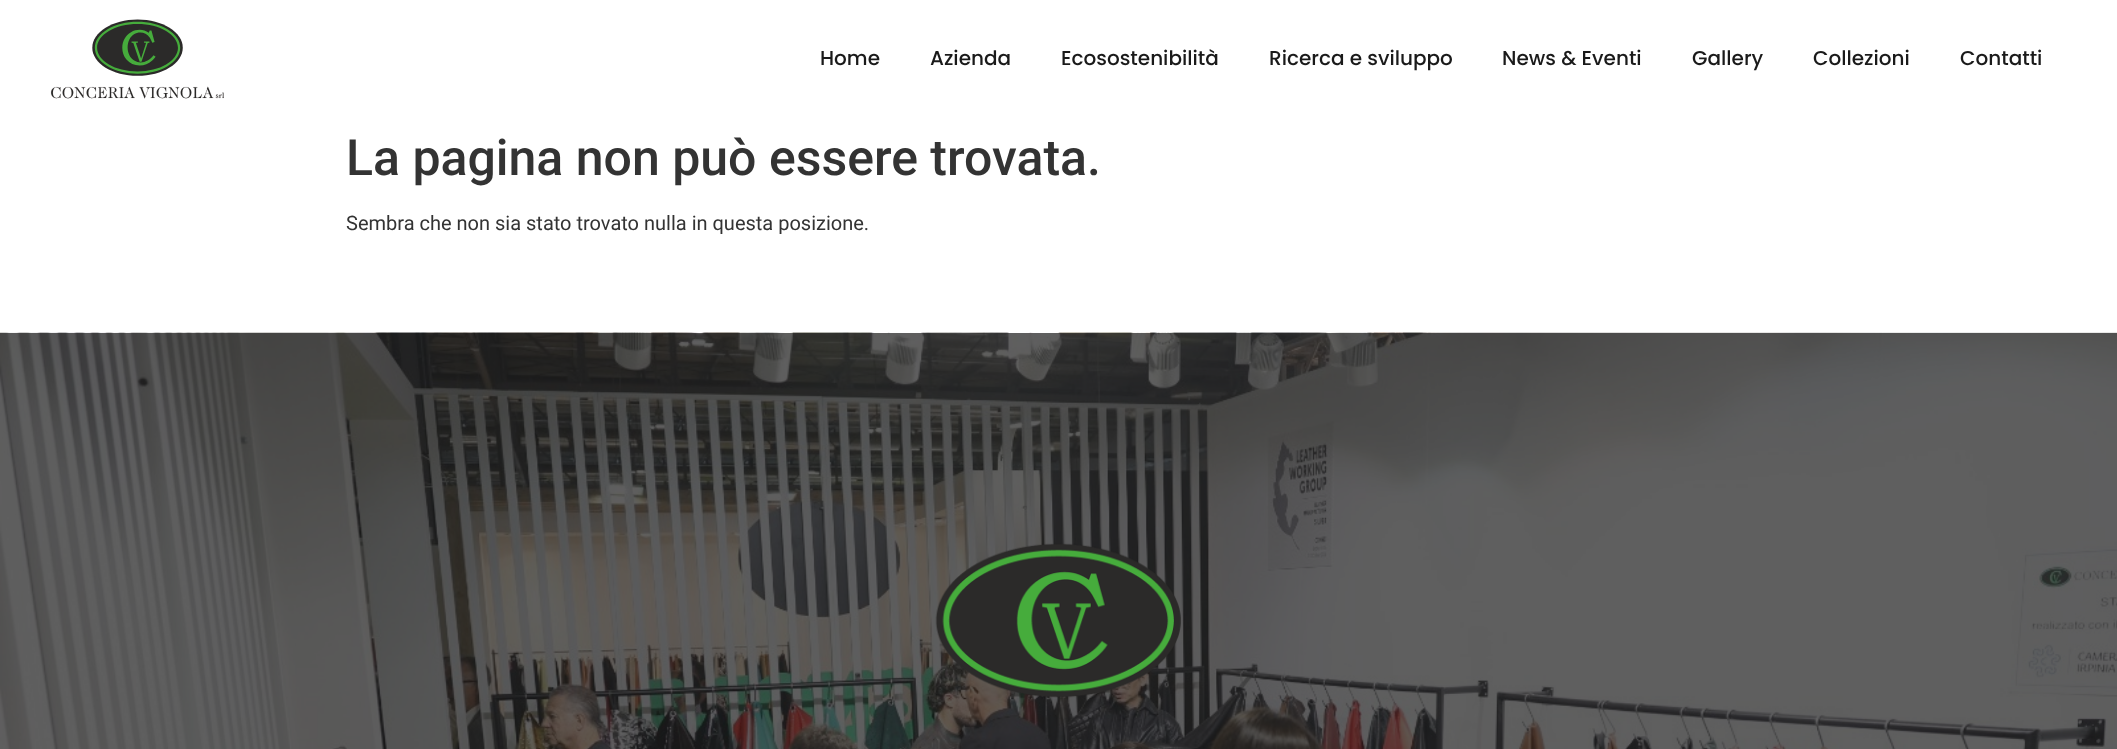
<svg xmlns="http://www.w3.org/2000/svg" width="2117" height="749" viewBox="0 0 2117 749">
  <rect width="100%" height="100%" fill="#fff"/>
  <image x="50" y="19" width="174" height="80" href="img/1.png"/>
  <image x="0" y="332" width="2117" height="417" href="img/2.png"/>
  <image x="935" y="543" width="246" height="155" href="img/3.png"/>
  <g font-family="Poppins" font-size="20" font-weight="500" fill="#1a1a1a">
    <text x="820" y="65">Home</text>
    <text x="930" y="65">Azienda</text>
    <text x="1061" y="65">Ecosostenibilità</text>
    <text x="1269" y="65">Ricerca e sviluppo</text>
    <text x="1502" y="65">News &amp; Eventi</text>
    <text x="1692" y="65">Gallery</text>
    <text x="1813" y="65">Collezioni</text>
    <text x="1960" y="65">Contatti</text>
  </g>
  <text x="346" y="175" font-family="Roboto" font-size="50" font-weight="500" fill="#333">La pagina non può essere trovata.</text>
  <text x="346" y="230" font-family="Roboto" font-size="20" fill="#333">Sembra che non sia stato trovato nulla in questa posizione.</text>
</svg>
